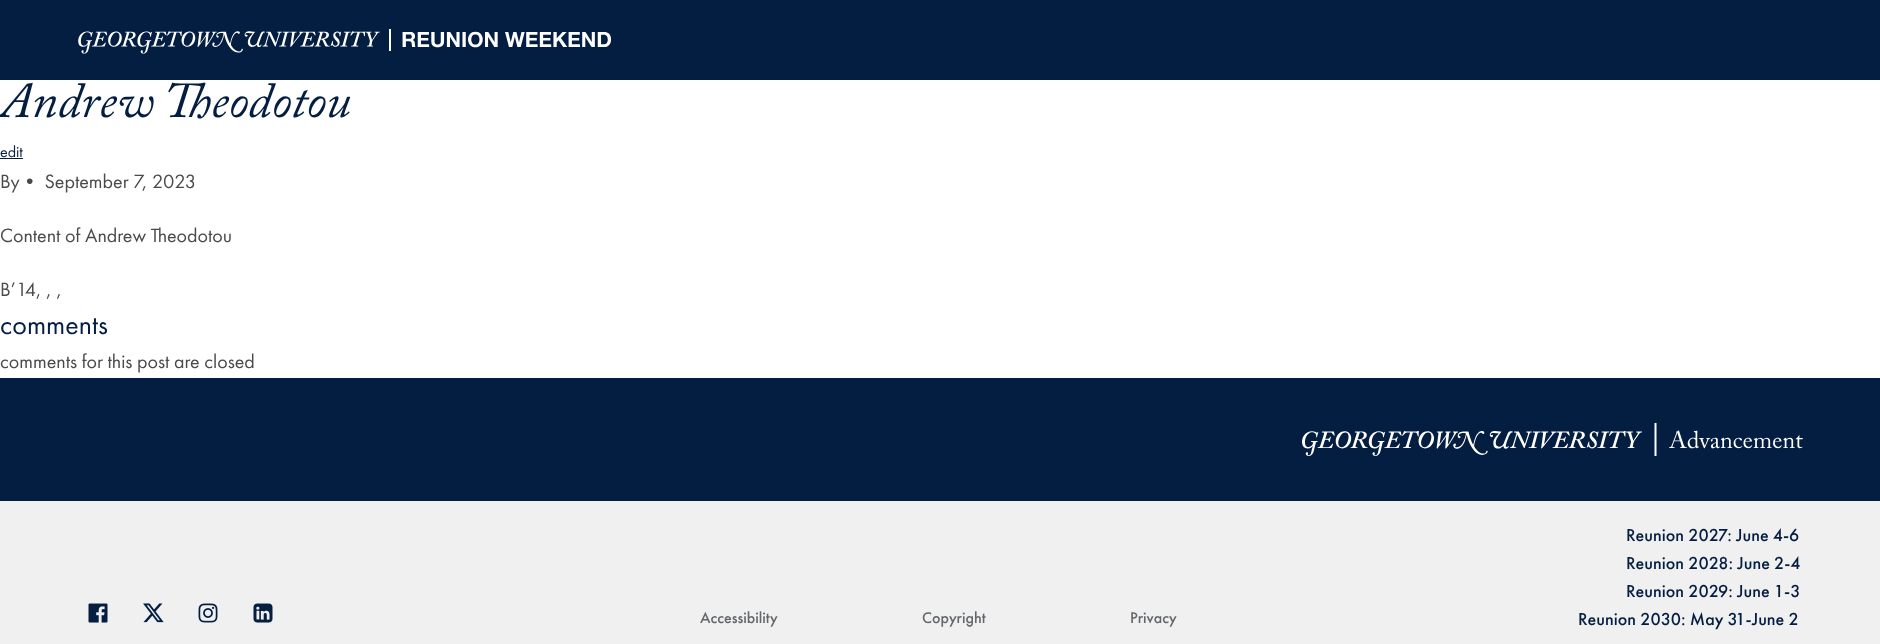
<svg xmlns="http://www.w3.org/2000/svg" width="1880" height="644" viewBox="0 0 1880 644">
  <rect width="100%" height="100%" fill="#fff"/>
  <path d="M0 0h1880v80H0z" fill="#041e42"/>
  <image x="78" y="29" width="533" height="25" href="img/1.png"/>
  <path d="M0 158h23v1H0z" fill="#041e42"/>
  <path d="M0 378h1880v123H0z" fill="#041e42"/>
  <image x="1302" y="423" width="501" height="33" href="img/2.png"/>
  <path d="M0 501h1880v143H0z" fill="#f0f0f0"/>
  <image x="88" y="603" width="20" height="20" href="img/3.png"/>
  <image x="143" y="603" width="21" height="20" href="img/4.png"/>
  <image x="198" y="603" width="20" height="20" href="img/5.png"/>
  <image x="253" y="603" width="20" height="20" href="img/6.png"/>
  <text x="0" y="117" font-family="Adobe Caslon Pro" font-size="50" font-style="italic" fill="#041e42">Andrew Theodotou</text>
  <text x="0" y="157" font-family="Futura PT" font-size="16" fill="#041e42">edit</text>
  <g font-family="Futura PT" font-size="20" fill="#4a4a4a">
    <text x="0" y="188">By• September 7, 2023</text>
    <text x="0" y="242">Content of Andrew Theodotou</text>
    <text x="0" y="296">B’14, , ,</text>
  </g>
  <text x="0" y="334" font-family="Futura PT" font-size="28" fill="#041e42">comments</text>
  <text x="0" y="368" font-family="Futura PT" font-size="20" fill="#4a4a4a">comments for this post are closed</text>
  <g font-family="Futura PT" font-size="16" font-weight="500" fill="#63666a">
    <text x="700" y="623">Accessibility</text>
    <text x="922" y="623">Copyright</text>
    <text x="1130" y="623">Privacy</text>
  </g>
  <g font-family="Futura PT" font-size="18" font-weight="500" fill="#041e42">
    <text x="1626" y="541">Reunion 2027: June 4-6</text>
    <text x="1626" y="569">Reunion 2028: June 2-4</text>
    <text x="1626" y="597">Reunion 2029: June 1-3</text>
    <text x="1578" y="625">Reunion 2030: May 31-June 2</text>
  </g>
</svg>
